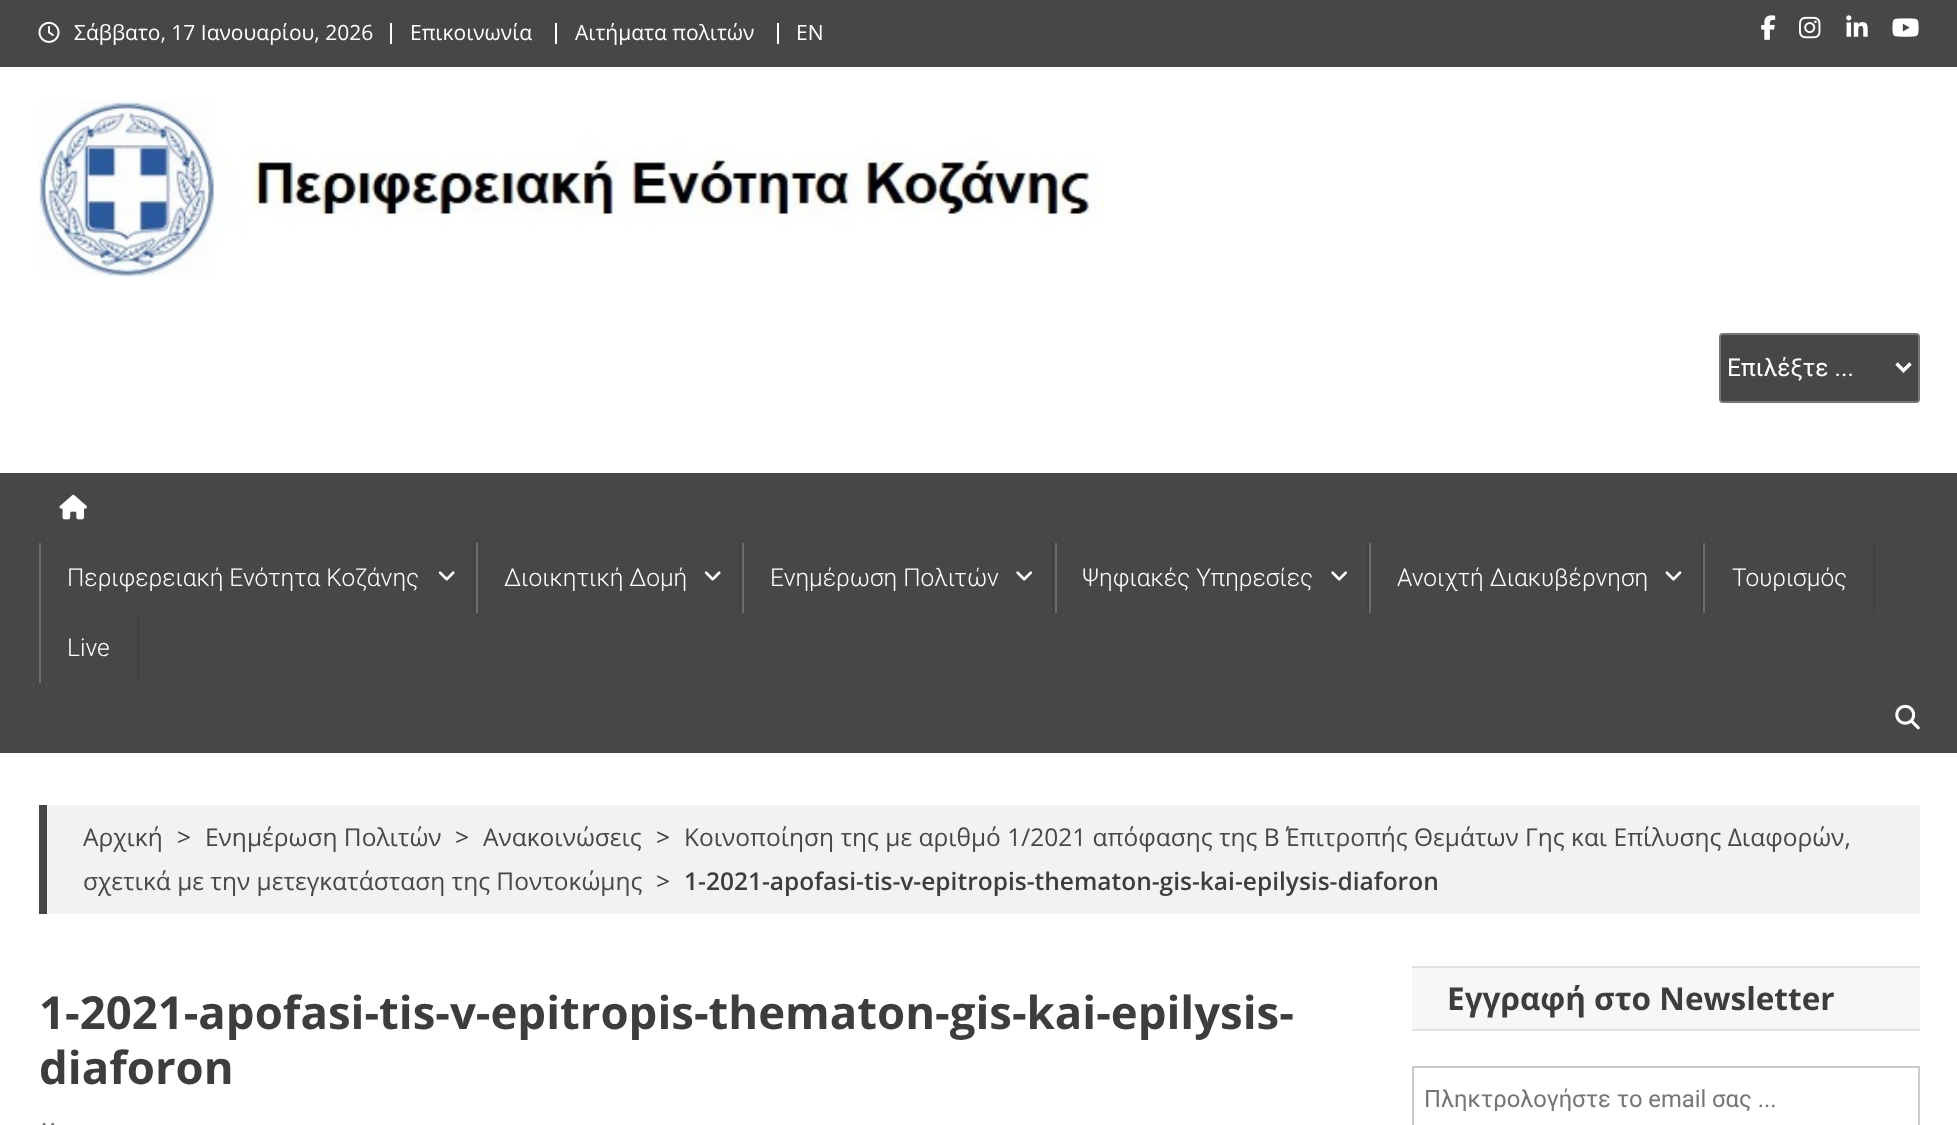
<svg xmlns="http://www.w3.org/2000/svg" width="1957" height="1125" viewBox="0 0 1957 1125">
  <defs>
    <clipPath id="clip1"><path d="M1425 1083h483v28H1425z"/></clipPath>
  </defs>
  <rect width="100%" height="100%" fill="#fff"/>
  <path d="M0 0h1957v67H0z" fill="#474747"/>
  <image x="38" y="21" width="22" height="22" href="img/1.png"/>
  <path d="M390 23h2v21H390z" fill="#fff"/>
  <path d="M555 23h2v21H555z" fill="#fff"/>
  <path d="M777 23h2v21H777z" fill="#fff"/>
  <image x="1761" y="15" width="15" height="25" href="img/2.png"/>
  <image x="1799" y="16" width="22" height="23" href="img/3.png"/>
  <image x="1846" y="15" width="22" height="22" href="img/4.png"/>
  <image x="1892" y="18" width="27" height="19" href="img/5.png"/>
  <image x="38" y="101" width="1066" height="176" href="img/6.png"/>
  <rect x="1720" y="334" width="199" height="68" rx="3" fill="#474747" stroke="#767676" stroke-width="2"/>
  <path d="M1896.5 363.5L1903.5 370.5L1910.5 363.5" fill="none" stroke="#fff" stroke-width="3.5"/>
  <path d="M0 473h1957v280H0z" fill="#474747"/>
  <image x="59" y="494" width="28" height="26" href="img/7.png"/>
  <path d="M473 543h2v70H473z" fill="#414141"/>
  <path d="M39 543h2v140H39z" fill="#6c6c6c"/>
  <image x="438" y="571" width="17" height="10" href="img/8.png"/>
  <path d="M739 543h2v70H739z" fill="#414141"/>
  <path d="M476 543h2v70H476z" fill="#6c6c6c"/>
  <image x="704" y="571" width="17" height="10" href="img/8.png"/>
  <path d="M1052 543h2v70H1052z" fill="#414141"/>
  <path d="M742 543h2v70H742z" fill="#6c6c6c"/>
  <image x="1016" y="571" width="16" height="10" href="img/9.png"/>
  <path d="M1367 543h2v70H1367z" fill="#414141"/>
  <path d="M1055 543h2v70H1055z" fill="#6c6c6c"/>
  <image x="1331" y="571" width="16" height="10" href="img/9.png"/>
  <path d="M1701 543h2v70H1701z" fill="#414141"/>
  <path d="M1369 543h2v70H1369z" fill="#6c6c6c"/>
  <image x="1665" y="571" width="17" height="10" href="img/10.png"/>
  <path d="M1873 543h2v70H1873z" fill="#414141"/>
  <path d="M1703 543h2v70H1703z" fill="#6c6c6c"/>
  <path d="M137 613h2v70H137z" fill="#414141"/>
  <image x="1895" y="704" width="25" height="26" href="img/11.png"/>
  <path d="M47 805h1873v109H47z" fill="#f2f2f2"/>
  <path d="M39 805h8v109H39z" fill="#474747"/>
  <image x="42" y="1122" width="13" height="3" href="img/12.png"/>
  <path d="M1412 968h508v61H1412z" fill="#f7f7f7"/>
  <path d="M1412 966h508v2H1412z" fill="#e1e1e1"/>
  <path d="M1412 1029h508v2H1412z" fill="#e1e1e1"/>
  <path d="M1413 1067h506v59H1413z" fill="none" stroke="#ccc" stroke-width="2"/>
  <g font-family="Open Sans" font-size="21" fill="#fff">
    <text x="74" y="40">Σάββατο, 17 Ιανουαρίου, 2026</text>
    <text x="410" y="40">Επικοινωνία</text>
    <text x="575" y="40">Αιτήματα πολιτών</text>
    <text x="796" y="40">EN</text>
  </g>
  <text x="1727" y="376" font-family="Roboto" font-size="24.5" fill="#fff">Επιλέξτε ...</text>
  <g font-family="Roboto" font-size="24.5" font-weight="300" fill="#fff">
    <text x="67" y="586">Περιφερειακή Ενότητα Κοζάνης</text>
    <text x="504" y="586">Διοικητική Δομή</text>
    <text x="770" y="586">Ενημέρωση Πολιτών</text>
    <text x="1082" y="586">Ψηφιακές Υπηρεσίες</text>
    <text x="1397" y="586">Ανοιχτή Διακυβέρνηση</text>
    <text x="1732" y="586">Τουρισμός</text>
    <text x="67" y="656">Live</text>
  </g>
  <text x="83" y="846" font-family="Open Sans" font-size="24.5" fill="#474747">Αρχική</text>
  <text x="177" y="846" font-family="Open Sans" font-size="24.5" fill="#3d3d3d">&gt;</text>
  <text x="205" y="846" font-family="Open Sans" font-size="24.5" fill="#474747">Ενημέρωση Πολιτών</text>
  <text x="455" y="846" font-family="Open Sans" font-size="24.5" fill="#3d3d3d">&gt;</text>
  <text x="483" y="846" font-family="Open Sans" font-size="24.5" fill="#474747">Ανακοινώσεις</text>
  <text x="656" y="846" font-family="Open Sans" font-size="24.5" fill="#3d3d3d">&gt;</text>
  <g font-family="Open Sans" font-size="24.5" fill="#474747">
    <text x="684" y="846">Κοινοποίηση της με αριθμό 1/2021 απόφασης της Β΄ Επιτροπής Θεμάτων Γης και Επίλυσης Διαφορών,</text>
    <text x="83" y="890">σχετικά με την μετεγκατάσταση της Ποντοκώμης</text>
  </g>
  <text x="656" y="890" font-family="Open Sans" font-size="24.5" fill="#3d3d3d">&gt;</text>
  <text x="684" y="890" font-family="Open Sans" font-size="24.5" font-weight="600" fill="#3d3d3d">1-2021-apofasi-tis-v-epitropis-thematon-gis-kai-epilysis-diaforon</text>
  <g font-family="Open Sans" font-size="45.5" font-weight="bold" fill="#3d3d3d">
    <text x="39" y="1029">1-2021-apofasi-tis-v-epitropis-thematon-gis-kai-epilysis-</text>
    <text x="39" y="1084">diaforon</text>
  </g>
  <text x="1447" y="1010" font-family="Open Sans" font-size="31.5" font-weight="bold" fill="#3d3d3d">Εγγραφή στο Newsletter</text>
  <g clip-path="url(#clip1)">
    <text x="1424" y="1107" font-family="Roboto" font-size="23.75" fill="#757575">Πληκτρολογήστε το email σας ...</text>
  </g>
</svg>
